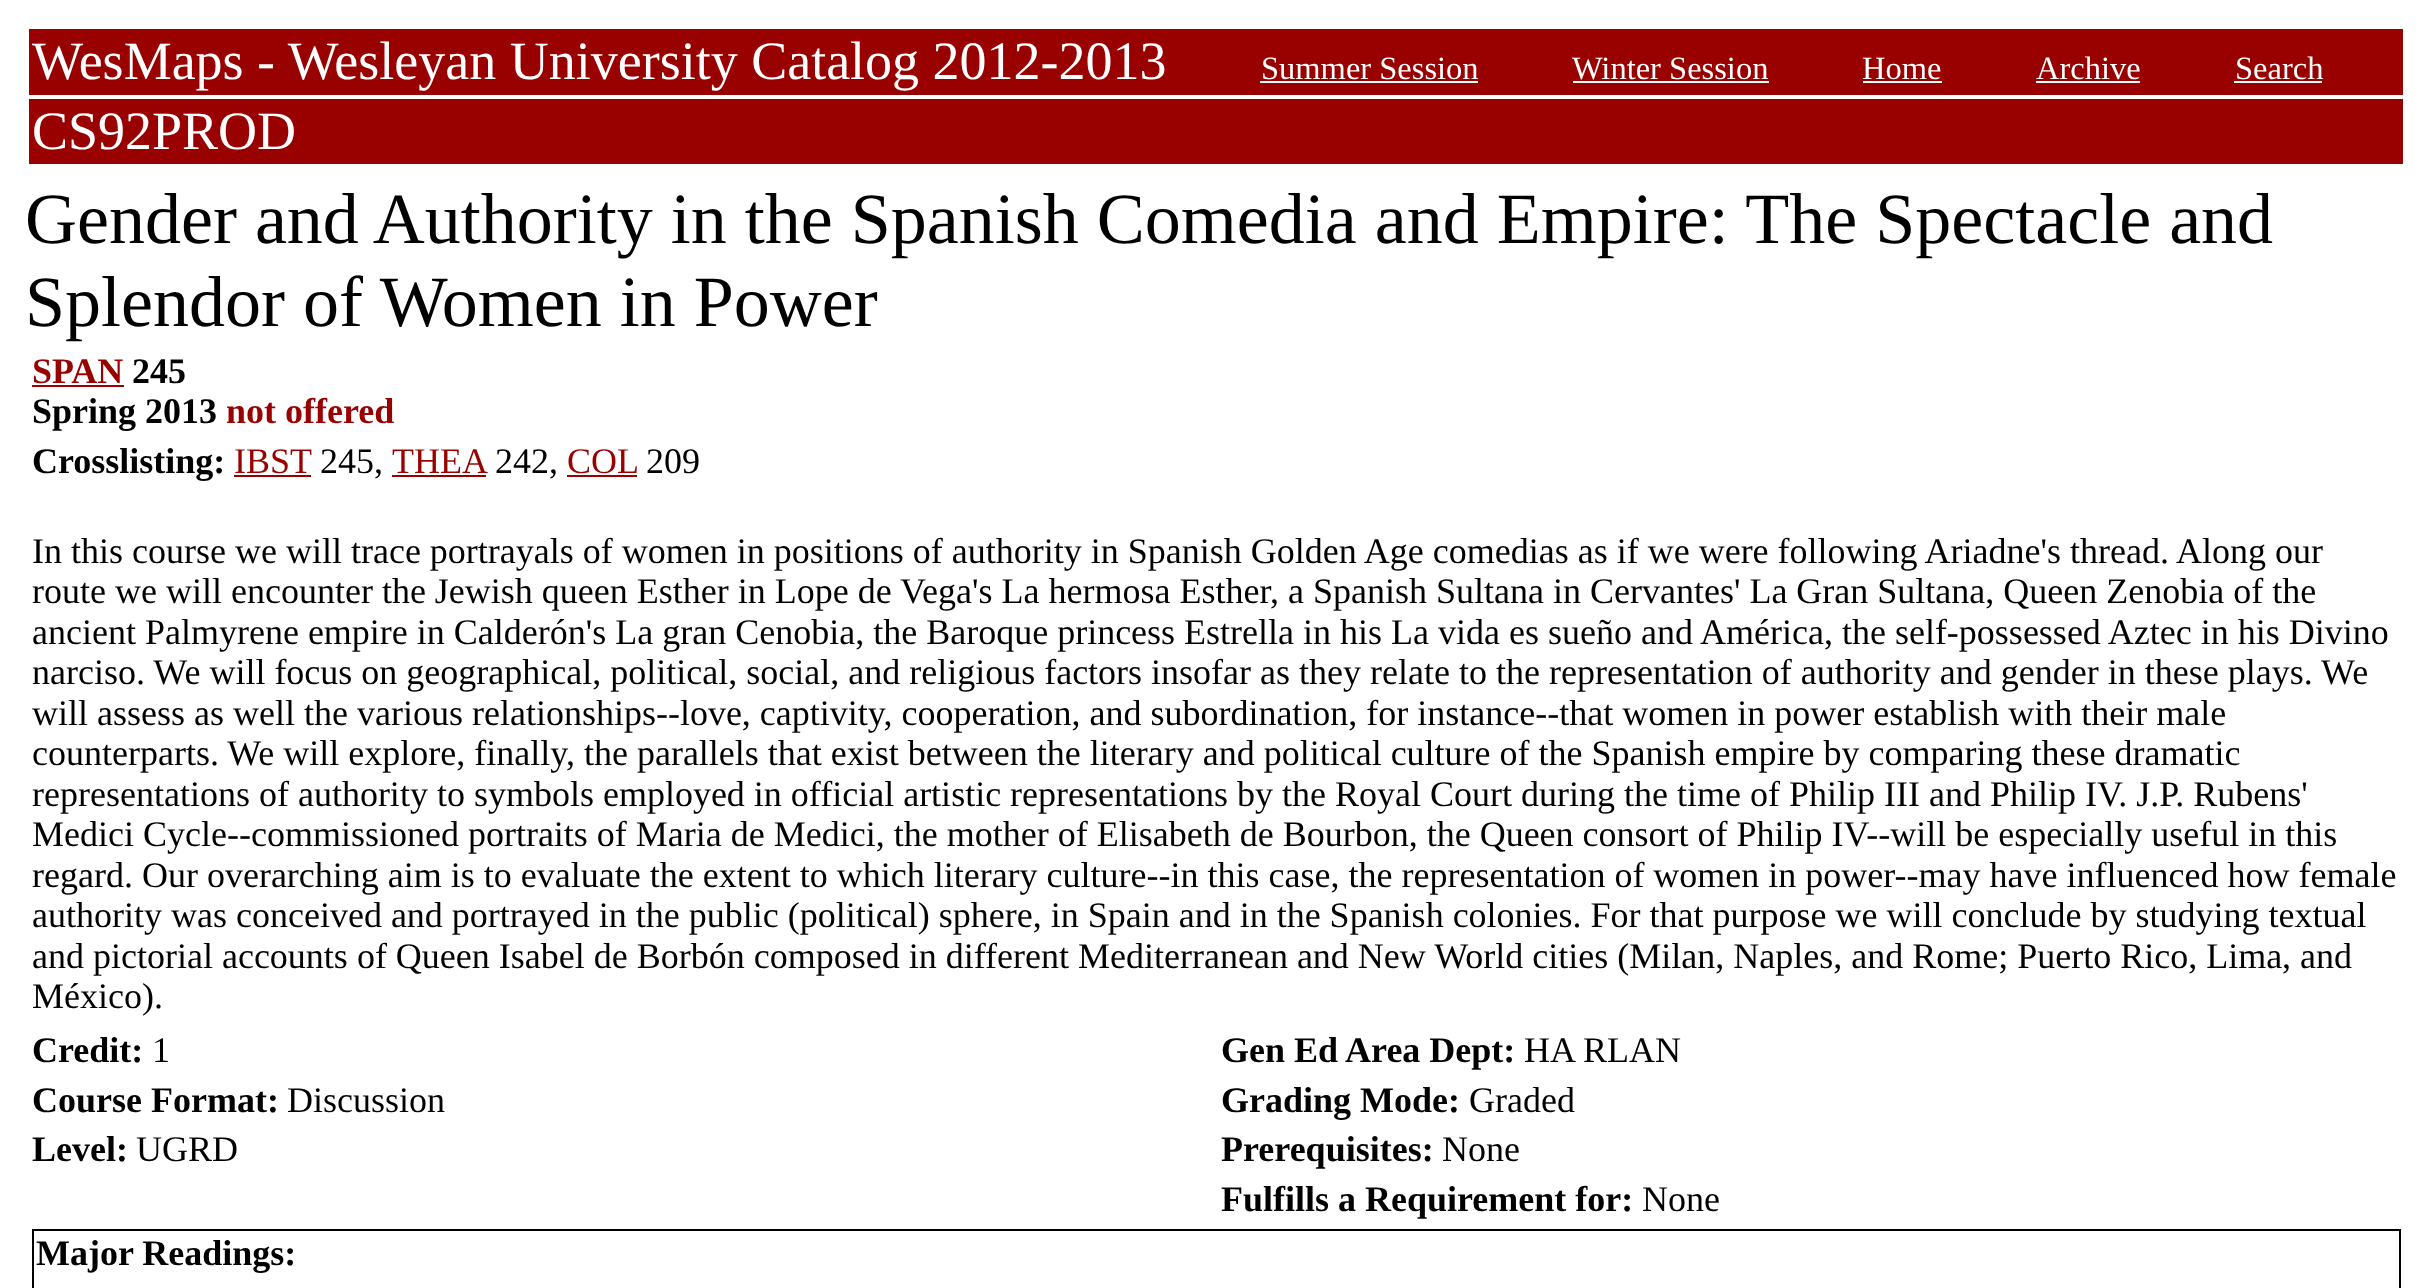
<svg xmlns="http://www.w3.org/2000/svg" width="2431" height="1288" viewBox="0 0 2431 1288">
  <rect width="100%" height="100%" fill="#fff"/>
  <path d="M29 29h2374v66H29z" fill="#900"/>
  <path d="M1260 81h218v2H1260z" fill="#fff"/>
  <path d="M1573 81h196v2H1573z" fill="#fff"/>
  <path d="M1863 81h79v2H1863z" fill="#fff"/>
  <path d="M2036 81h104v2H2036z" fill="#fff"/>
  <path d="M2234 81h88v2H2234z" fill="#fff"/>
  <path d="M29 99h2374v65H29z" fill="#900"/>
  <path d="M32 385h92v2H32z" fill="#900"/>
  <path d="M234 475h77v2H234z" fill="#900"/>
  <path d="M392 475h94v2H392z" fill="#900"/>
  <path d="M567 475h70v2H567z" fill="#900"/>
  <path d="M32 1229h2369v2H32z" fill="#000"/>
  <path d="M2399 1229h2v59H2399z" fill="#000"/>
  <path d="M32 1229h2v59H32z" fill="#000"/>
  <text x="32" y="79" font-family="Liberation Serif" font-size="54" fill="#fff">WesMaps - Wesleyan University Catalog 2012-2013</text>
  <g font-family="Liberation Serif" font-size="32.5" fill="#fff">
    <text x="1261" y="79">Summer Session</text>
    <text x="1572" y="79">Winter Session</text>
    <text x="1862" y="79">Home</text>
    <text x="2036" y="79">Archive</text>
    <text x="2235" y="79">Search</text>
  </g>
  <text x="32" y="149" font-family="Liberation Serif" font-size="54" fill="#fff">CS92PROD</text>
  <g font-family="Liberation Serif" font-size="72" fill="#000">
    <text x="25" y="243">Gender and Authority in the Spanish Comedia and Empire: The Spectacle and</text>
    <text x="25" y="326">Splendor of Women in Power</text>
  </g>
  <text x="32" y="383" font-family="Liberation Serif" font-size="36" font-weight="bold" fill="#900">SPAN</text>
  <g font-family="Liberation Serif" font-size="36" font-weight="bold" fill="#000">
    <text x="132" y="383">245</text>
    <text x="32" y="423">Spring 2013</text>
  </g>
  <text x="226" y="423" font-family="Liberation Serif" font-size="36" font-weight="bold" fill="#900">not offered</text>
  <text x="32" y="473" font-family="Liberation Serif" font-size="36" font-weight="bold" fill="#000">Crosslisting:</text>
  <text x="234" y="473" font-family="Liberation Serif" font-size="36" fill="#900">IBST</text>
  <text x="320" y="473" font-family="Liberation Serif" font-size="36" fill="#000">245,</text>
  <text x="392" y="473" font-family="Liberation Serif" font-size="36" fill="#900">THEA</text>
  <text x="495" y="473" font-family="Liberation Serif" font-size="36" fill="#000">242,</text>
  <text x="567" y="473" font-family="Liberation Serif" font-size="36" fill="#900">COL</text>
  <g font-family="Liberation Serif" font-size="36" fill="#000">
    <text x="646" y="473">209</text>
    <text x="32" y="563">In this course we will trace portrayals of women in positions of authority in Spanish Golden Age comedias as if we were following Ariadne's thread. Along our</text>
    <text x="32" y="603">route we will encounter the Jewish queen Esther in Lope de Vega's La hermosa Esther, a Spanish Sultana in Cervantes' La Gran Sultana, Queen Zenobia of the</text>
    <text x="32" y="644">ancient Palmyrene empire in Calderón's La gran Cenobia, the Baroque princess Estrella in his La vida es sueño and América, the self-possessed Aztec in his Divino</text>
    <text x="32" y="684">narciso. We will focus on geographical, political, social, and religious factors insofar as they relate to the representation of authority and gender in these plays. We</text>
    <text x="32" y="725">will assess as well the various relationships--love, captivity, cooperation, and subordination, for instance--that women in power establish with their male</text>
    <text x="32" y="765">counterparts. We will explore, finally, the parallels that exist between the literary and political culture of the Spanish empire by comparing these dramatic</text>
    <text x="32" y="806">representations of authority to symbols employed in official artistic representations by the Royal Court during the time of Philip III and Philip IV. J.P. Rubens'</text>
    <text x="32" y="846">Medici Cycle--commissioned portraits of Maria de Medici, the mother of Elisabeth de Bourbon, the Queen consort of Philip IV--will be especially useful in this</text>
    <text x="32" y="887">regard. Our overarching aim is to evaluate the extent to which literary culture--in this case, the representation of women in power--may have influenced how female</text>
    <text x="32" y="927">authority was conceived and portrayed in the public (political) sphere, in Spain and in the Spanish colonies. For that purpose we will conclude by studying textual</text>
    <text x="32" y="968">and pictorial accounts of Queen Isabel de Borbón composed in different Mediterranean and New World cities (Milan, Naples, and Rome; Puerto Rico, Lima, and</text>
    <text x="32" y="1008">México).</text>
  </g>
  <text x="32" y="1062" font-family="Liberation Serif" font-size="36" font-weight="bold" fill="#000">Credit:</text>
  <text x="152" y="1062" font-family="Liberation Serif" font-size="36" fill="#000">1</text>
  <text x="1221" y="1062" font-family="Liberation Serif" font-size="36" font-weight="bold" fill="#000">Gen Ed Area Dept:</text>
  <text x="1524" y="1062" font-family="Liberation Serif" font-size="36" fill="#000">HA RLAN</text>
  <text x="32" y="1112" font-family="Liberation Serif" font-size="36" font-weight="bold" fill="#000">Course Format:</text>
  <text x="287" y="1112" font-family="Liberation Serif" font-size="36" fill="#000">Discussion</text>
  <text x="1221" y="1112" font-family="Liberation Serif" font-size="36" font-weight="bold" fill="#000">Grading Mode:</text>
  <text x="1469" y="1112" font-family="Liberation Serif" font-size="36" fill="#000">Graded</text>
  <text x="32" y="1161" font-family="Liberation Serif" font-size="36" font-weight="bold" fill="#000">Level:</text>
  <text x="136" y="1161" font-family="Liberation Serif" font-size="36" fill="#000">UGRD</text>
  <text x="1221" y="1161" font-family="Liberation Serif" font-size="36" font-weight="bold" fill="#000">Prerequisites:</text>
  <text x="1442" y="1161" font-family="Liberation Serif" font-size="36" fill="#000">None</text>
  <text x="1221" y="1211" font-family="Liberation Serif" font-size="36" font-weight="bold" fill="#000">Fulfills a Requirement for:</text>
  <text x="1642" y="1211" font-family="Liberation Serif" font-size="36" fill="#000">None</text>
  <text x="36" y="1265" font-family="Liberation Serif" font-size="36" font-weight="bold" fill="#000">Major Readings:</text>
</svg>
